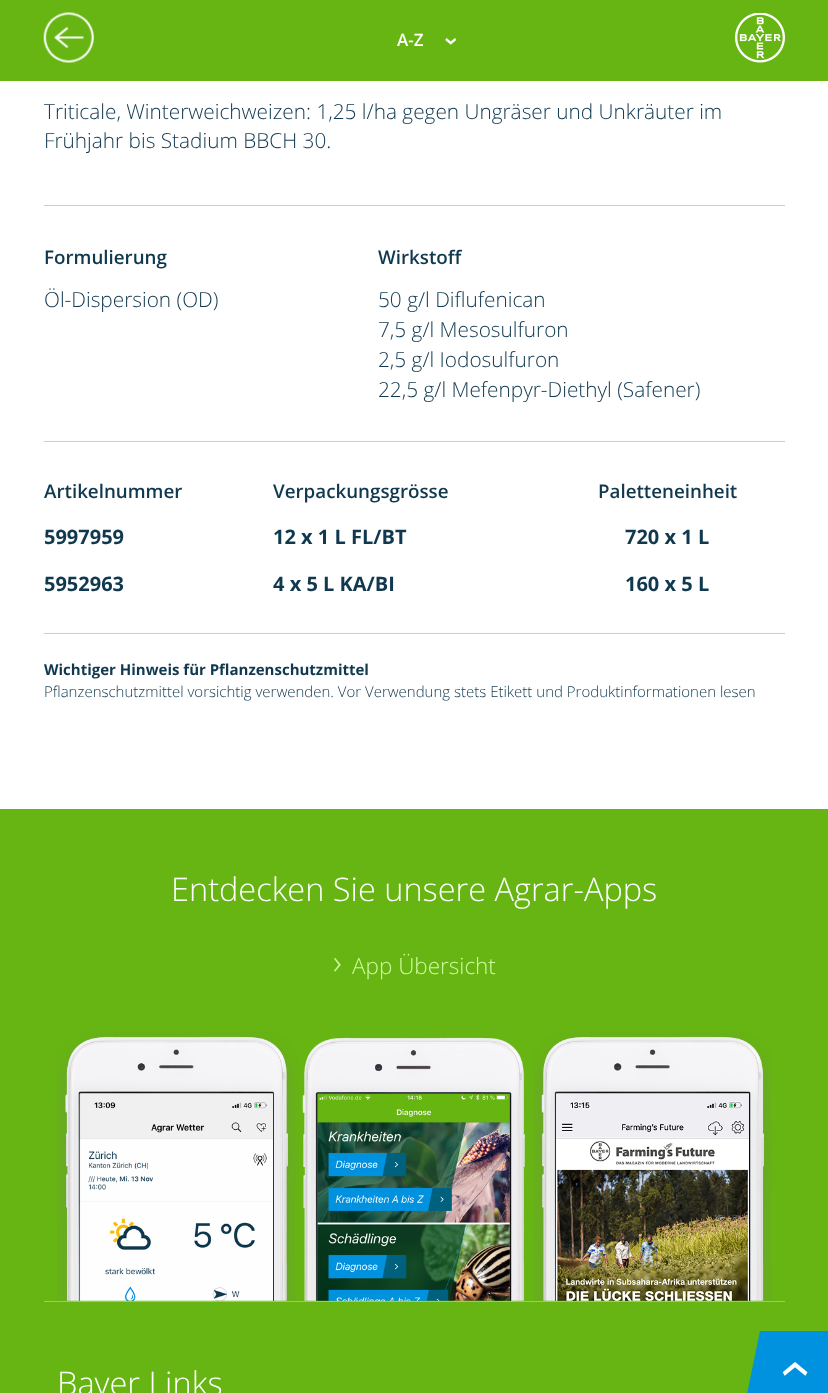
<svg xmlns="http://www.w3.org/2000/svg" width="828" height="1393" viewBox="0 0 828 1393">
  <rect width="100%" height="100%" fill="#fff"/>
  <path d="M0 0h828v81H0z" fill="#66b512"/>
  <image x="43" y="12" width="51" height="51" href="img/1.png"/>
  <image x="735" y="13" width="50" height="50" href="img/2.png"/>
  <path d="M44 205h741v1H44z" fill="#ccc"/>
  <path d="M44 441h741v1H44z" fill="#ccc"/>
  <path d="M44 633h741v1H44z" fill="#ccc"/>
  <path d="M0 809h828v584H0z" fill="#66b512"/>
  <image x="55" y="1032" width="717" height="269" href="img/3.png"/>
  <path d="M44 1301h741v1H44z" fill="#9ace62"/>
  <path d="M760 1331H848L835 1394H747Z" fill="#0091df"/>
  <text x="397" y="46" font-family="Open Sans" font-size="17" font-weight="600" fill="#fff">A-Z</text>
  <text x="444" y="37" transform="rotate(90 444 37)" font-family="Open Sans" font-size="25" font-weight="600" fill="#fff">›</text>
  <g font-family="Open Sans" font-size="20.8" font-weight="300" fill="#10384f">
    <text x="44" y="119">Triticale, Winterweichweizen: 1,25 l/ha gegen Ungräser und Unkräuter im</text>
    <text x="44" y="148">Frühjahr bis Stadium BBCH 30.</text>
  </g>
  <text x="44" y="264" font-family="Open Sans" font-size="18.75" font-weight="600" fill="#10384f">Formulierung</text>
  <text x="44" y="307" font-family="Open Sans" font-size="20.8" font-weight="300" fill="#10384f">Öl-Dispersion (OD)</text>
  <text x="378" y="264" font-family="Open Sans" font-size="18.75" font-weight="600" fill="#10384f">Wirkstoff</text>
  <g font-family="Open Sans" font-size="20.8" font-weight="300" fill="#10384f">
    <text x="378" y="307">50 g/l Diflufenican</text>
    <text x="378" y="337">7,5 g/l Mesosulfuron</text>
    <text x="378" y="367">2,5 g/l Iodosulfuron</text>
    <text x="378" y="397">22,5 g/l Mefenpyr-Diethyl (Safener)</text>
  </g>
  <g font-family="Open Sans" font-size="18.75" font-weight="600" fill="#10384f">
    <text x="44" y="498">Artikelnummer</text>
    <text x="273" y="498">Verpackungsgrösse</text>
    <text x="598" y="498">Paletteneinheit</text>
  </g>
  <g font-family="Open Sans" font-size="20" font-weight="bold" fill="#10384f">
    <text x="44" y="544">5997959</text>
    <text x="273" y="544">12 x 1 L FL/BT</text>
    <text x="625" y="544">720 x 1 L</text>
    <text x="44" y="591">5952963</text>
    <text x="273" y="591">4 x 5 L KA/BI</text>
    <text x="625" y="591">160 x 5 L</text>
  </g>
  <text x="44" y="675" font-family="Open Sans" font-size="15" font-weight="bold" fill="#10384f">Wichtiger Hinweis für Pflanzenschutzmittel</text>
  <text x="44" y="697" font-family="Open Sans" font-size="15" font-weight="300" fill="#10384f">Pflanzenschutzmittel vorsichtig verwenden. Vor Verwendung stets Etikett und Produktinformationen lesen</text>
  <text x="171" y="901" font-family="Open Sans" font-size="32.5" font-weight="300" fill="#fff">Entdecken Sie unsere Agrar-Apps</text>
  <text x="333" y="974" font-family="Open Sans" font-size="34" font-weight="300" fill="#cffc9f">›</text>
  <text x="352" y="974" font-family="Open Sans" font-size="22.5" font-weight="300" fill="#cffc9f">App Übersicht</text>
  <text x="57" y="1395" font-family="Open Sans" font-size="32.5" font-weight="300" fill="#fff">Bayer Links</text>
  <text x="811" y="1378" transform="rotate(-90 811 1378)" font-family="Open Sans" font-size="60" fill="#fff">›</text>
</svg>
